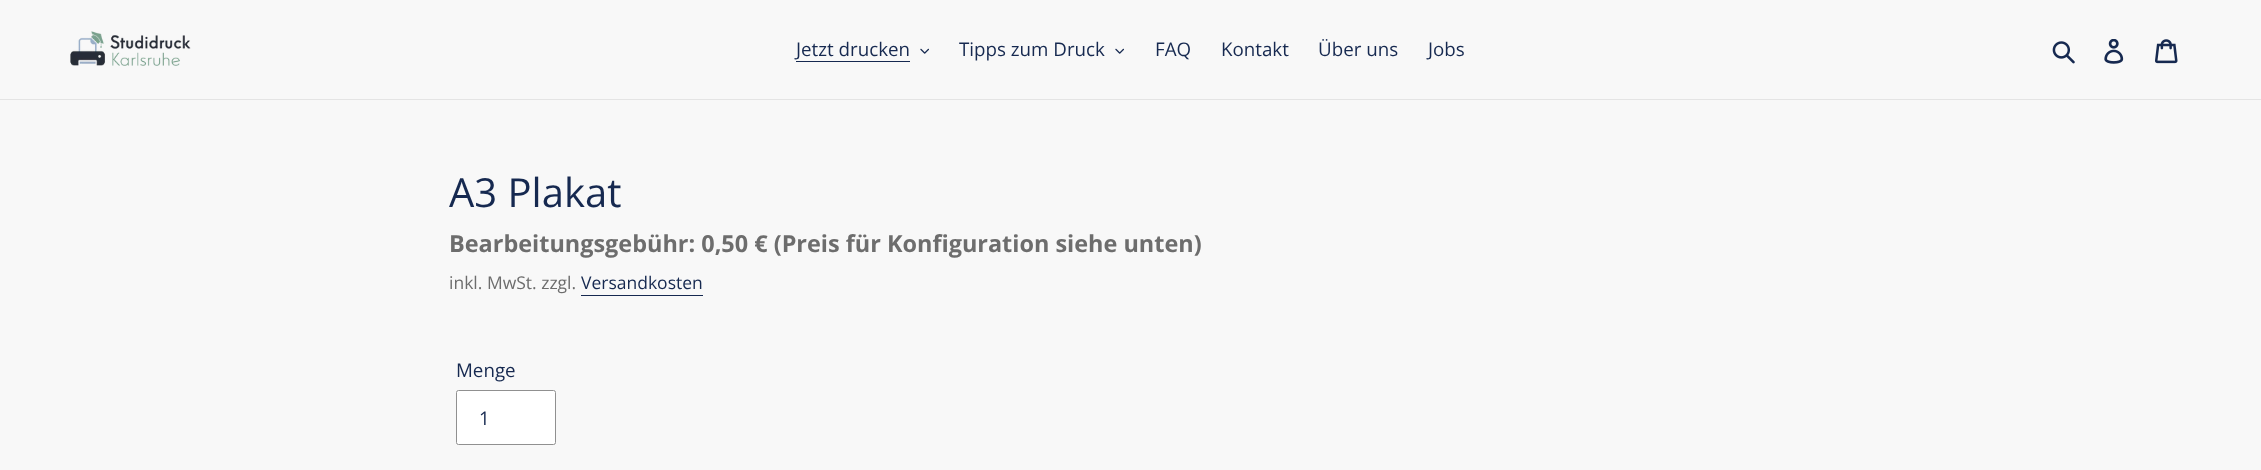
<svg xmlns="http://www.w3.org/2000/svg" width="2261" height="470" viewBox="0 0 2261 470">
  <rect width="100%" height="100%" fill="#f8f8f8"/>
  <path d="M0 99h2261v1H0z" fill="#e4e4e4"/>
  <image x="70" y="31" width="121" height="35" href="img/1.png"/>
  <path d="M796 61h114v1H796z" fill="#162950"/>
  <image x="920" y="48" width="9" height="6" href="img/2.png"/>
  <image x="1115" y="48" width="9" height="6" href="img/2.png"/>
  <image x="2052" y="41" width="23" height="23" href="img/3.png"/>
  <image x="2104" y="39" width="20" height="25" href="img/4.png"/>
  <image x="2155" y="39" width="23" height="25" href="img/5.png"/>
  <path d="M581 295h122v1H581z" fill="#162950"/>
  <rect x="456.5" y="390.5" width="99" height="54" rx="2" fill="#fff" stroke="#909090"/>
  <g font-family="Open Sans" font-size="18.75" fill="#162950">
    <text x="796" y="56">Jetzt drucken</text>
    <text x="959" y="56">Tipps zum Druck</text>
    <text x="1155" y="56">FAQ</text>
    <text x="1221" y="56">Kontakt</text>
    <text x="1318" y="56">Über uns</text>
    <text x="1428" y="56">Jobs</text>
  </g>
  <text x="449" y="207" font-family="Open Sans" font-size="40" fill="#162950">A3 Plakat</text>
  <text x="449" y="252" font-family="Open Sans" font-size="23.45" font-weight="bold" fill="#6d6d6d">Bearbeitungsgebühr: 0,50 € (Preis für Konfiguration siehe unten)</text>
  <text x="449" y="289" font-family="Open Sans" font-size="17.5" fill="#6d6d6d">inkl. MwSt. zzgl.</text>
  <text x="581" y="289" font-family="Open Sans" font-size="17.5" fill="#162950">Versandkosten</text>
  <g font-family="Open Sans" font-size="18.75" fill="#162950">
    <text x="456" y="377">Menge</text>
    <text x="479" y="425">1</text>
  </g>
</svg>
